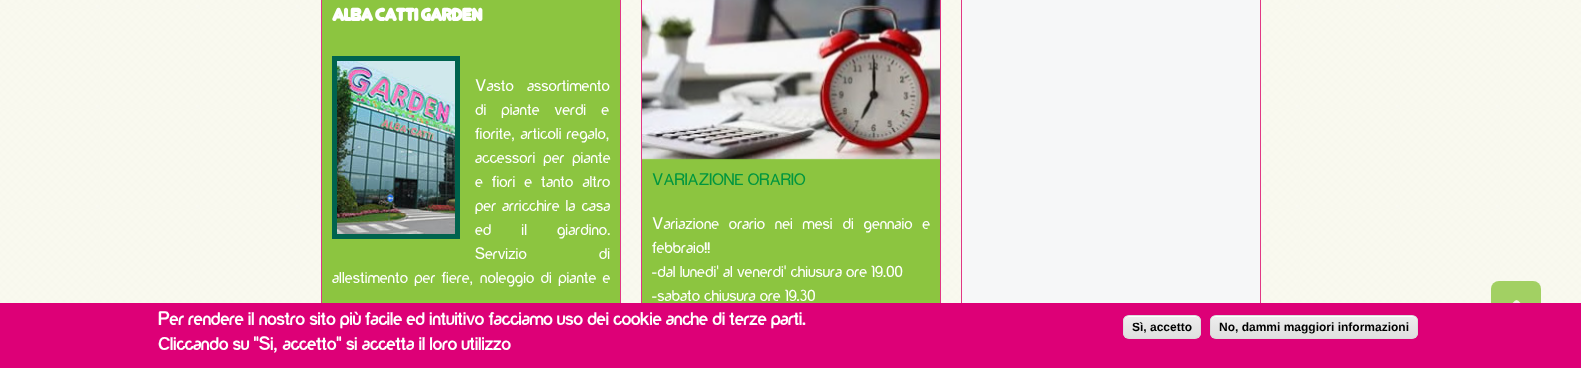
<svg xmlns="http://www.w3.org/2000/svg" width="1581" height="368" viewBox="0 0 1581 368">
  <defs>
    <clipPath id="clip1"><rect x="1123" y="315" width="78" height="24" rx="6"/></clipPath>
    <linearGradient id="g1" gradientUnits="userSpaceOnUse" x1="1124" y1="316" x2="1124" y2="338"><stop offset="0.05" stop-color="#ededed"/><stop offset="1" stop-color="#dfdfdf"/></linearGradient>
    <clipPath id="clip2"><rect x="1210" y="315" width="208" height="24" rx="6"/></clipPath>
    <linearGradient id="g2" gradientUnits="userSpaceOnUse" x1="1211" y1="316" x2="1211" y2="338"><stop offset="0.05" stop-color="#ededed"/><stop offset="1" stop-color="#dfdfdf"/></linearGradient>
  </defs>
  <rect width="100%" height="100%" fill="#fff"/>
  <image x="0" y="0" width="1581" height="303" href="img/1.png"/>
  <path d="M322 0h298v303H322z" fill="#8cc540"/>
  <path d="M321.5 -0.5h299v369H321.5z" fill="none" stroke="#e13784"/>
  <path d="M334.5 58.5h123v178H334.5z" fill="none" stroke="#00634e" stroke-width="5"/>
  <image x="337" y="61" width="118" height="173" href="img/2.png"/>
  <path d="M642 158h298v145H642z" fill="#8cc540"/>
  <path d="M641.5 -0.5h299v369H641.5z" fill="none" stroke="#e13784"/>
  <image x="642" y="0" width="298" height="160" href="img/3.png"/>
  <path d="M962 0h298v303H962z" fill="#f6f7f8"/>
  <path d="M961.5 -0.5h299v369H961.5z" fill="none" stroke="#e13784"/>
  <rect x="1491" y="281" width="50" height="50" rx="8" fill="#8cc540cc"/>
  <path d="M0 303h1581v65H0z" fill="#d07"/>
  <g clip-path="url(#clip1)">
    <path d="M1123 316h78v22H1123z" fill="url(#g1)"/>
  </g>
  <path d="M1129 317H1195C1198 317 1200 319 1200 322C1200 313 1190 316 1184 316H1140C1134 316 1124 313 1124 322C1124 319 1126 317 1129 317Z" fill="#fff"/>
  <rect x="1123.5" y="315.5" width="77" height="23" rx="5.5" fill="none" stroke="#dcdcdc"/>
  <g clip-path="url(#clip2)">
    <path d="M1210 316h208v22H1210z" fill="url(#g2)"/>
  </g>
  <path d="M1216 317H1412C1415 317 1417 319 1417 322V321C1417 318 1415 316 1412 316H1216C1213 316 1211 318 1211 321V322C1211 319 1213 317 1216 317Z" fill="#fff"/>
  <rect x="1210.5" y="315.5" width="207" height="23" rx="5.5" fill="none" stroke="#dcdcdc"/>
  <image x="1512" y="300" width="9" height="3" href="img/4.png"/>
  <text x="332" y="21" font-family="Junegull" font-size="21" font-weight="bold" letter-spacing="-1" fill="#fff">ALBA CATTI GARDEN</text>
  <g font-family="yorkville" font-size="16" fill="#fff">
    <text x="475" y="91" word-spacing="9">Vasto assortimento</text>
    <text x="475" y="115" word-spacing="11">di piante verdi e</text>
    <text x="475" y="139" word-spacing="1">fiorite, articoli regalo,</text>
    <text x="475" y="163" word-spacing="4">accessori per piante</text>
    <text x="475" y="187" word-spacing="5">e fiori e tanto altro</text>
    <text x="475" y="211" word-spacing="2">per arricchire la casa</text>
    <text x="475" y="235" word-spacing="26">ed il giardino.</text>
    <text x="475" y="259" word-spacing="68">Servizio di</text>
    <text x="332" y="283" word-spacing="2.25">allestimento per fiere, noleggio di piante e</text>
  </g>
  <text x="652" y="185" font-family="yorkville" font-size="16" fill="#00963f">VARIAZIONE ORARIO</text>
  <g font-family="yorkville" font-size="16" fill="#fff">
    <text x="652" y="229" word-spacing="5.75">Variazione orario nei mesi di gennaio e</text>
    <text x="652" y="253">febbraio!!</text>
    <text x="652" y="277">-dal lunedi' al venerdi' chiusura ore 19.00</text>
    <text x="652" y="301">-sabato chiusura ore 19.30</text>
  </g>
  <g font-family="yorkville" font-size="18" font-weight="bold" fill="#fff">
    <text x="158" y="325">Per rendere il nostro sito più facile ed intuitivo facciamo uso dei cookie anche di terze parti.</text>
    <text x="158" y="350">Cliccando su "Si, accetto" si accetta il loro utilizzo</text>
  </g>
  <g font-family="Liberation Sans" font-size="12" font-weight="bold" fill="#000">
    <text x="1132" y="331">Sì, accetto</text>
    <text x="1219" y="331">No, dammi maggiori informazioni</text>
  </g>
</svg>
